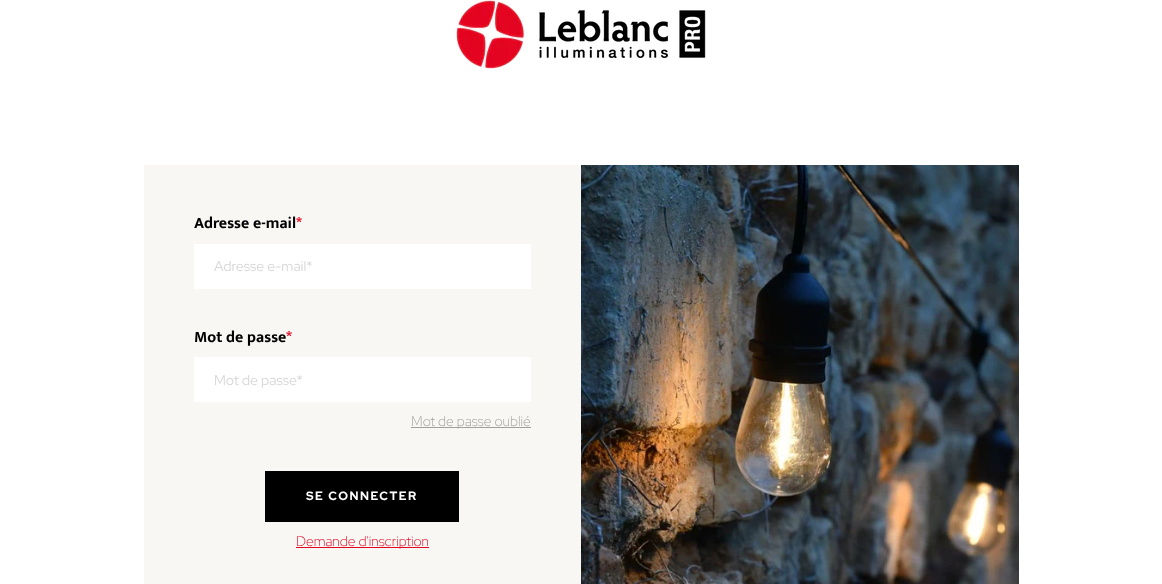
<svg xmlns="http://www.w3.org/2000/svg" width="1162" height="584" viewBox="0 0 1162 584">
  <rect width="100%" height="100%" fill="#fff"/>
  <image x="456" y="0" width="250" height="69" href="img/1.png"/>
  <path d="M144 165h437v419H144z" fill="#f9f7f4"/>
  <path d="M194 244h337v45H194z" fill="#fff"/>
  <path d="M194 357h337v45H194z" fill="#fff"/>
  <path d="M411 427h120v1H411z" fill="#a0a0a0"/>
  <path d="M265 471h194v51H265z" fill="#000"/>
  <path d="M296 547h133v1H296z" fill="#e30521"/>
  <image x="581" y="165" width="438" height="419" href="img/2.png"/>
  <text x="194" y="228" font-family="Mukta" font-size="16" font-weight="bold" fill="#000">Adresse e-mail</text>
  <text x="296" y="228" font-family="Mukta" font-size="16" font-weight="bold" fill="#e30521">*</text>
  <text x="214" y="271" font-family="Red Hat Display" font-size="14" fill="#d8d8d8">Adresse e-mail*</text>
  <text x="194" y="342" font-family="Mukta" font-size="16" font-weight="bold" fill="#000">Mot de passe</text>
  <text x="286" y="342" font-family="Mukta" font-size="16" font-weight="bold" fill="#e30521">*</text>
  <text x="214" y="385" font-family="Red Hat Display" font-size="14" fill="#d8d8d8">Mot de passe*</text>
  <text x="411" y="426" font-family="Red Hat Display" font-size="14" font-weight="300" fill="#a0a0a0">Mot de passe oublié</text>
  <text x="306" y="500" font-family="Red Hat Display" font-size="12" font-weight="bold" letter-spacing="1.5" fill="#fff">SE CONNECTER</text>
  <text x="296" y="546" font-family="Red Hat Display" font-size="14" font-weight="300" fill="#e30521">Demande d'inscription</text>
</svg>
